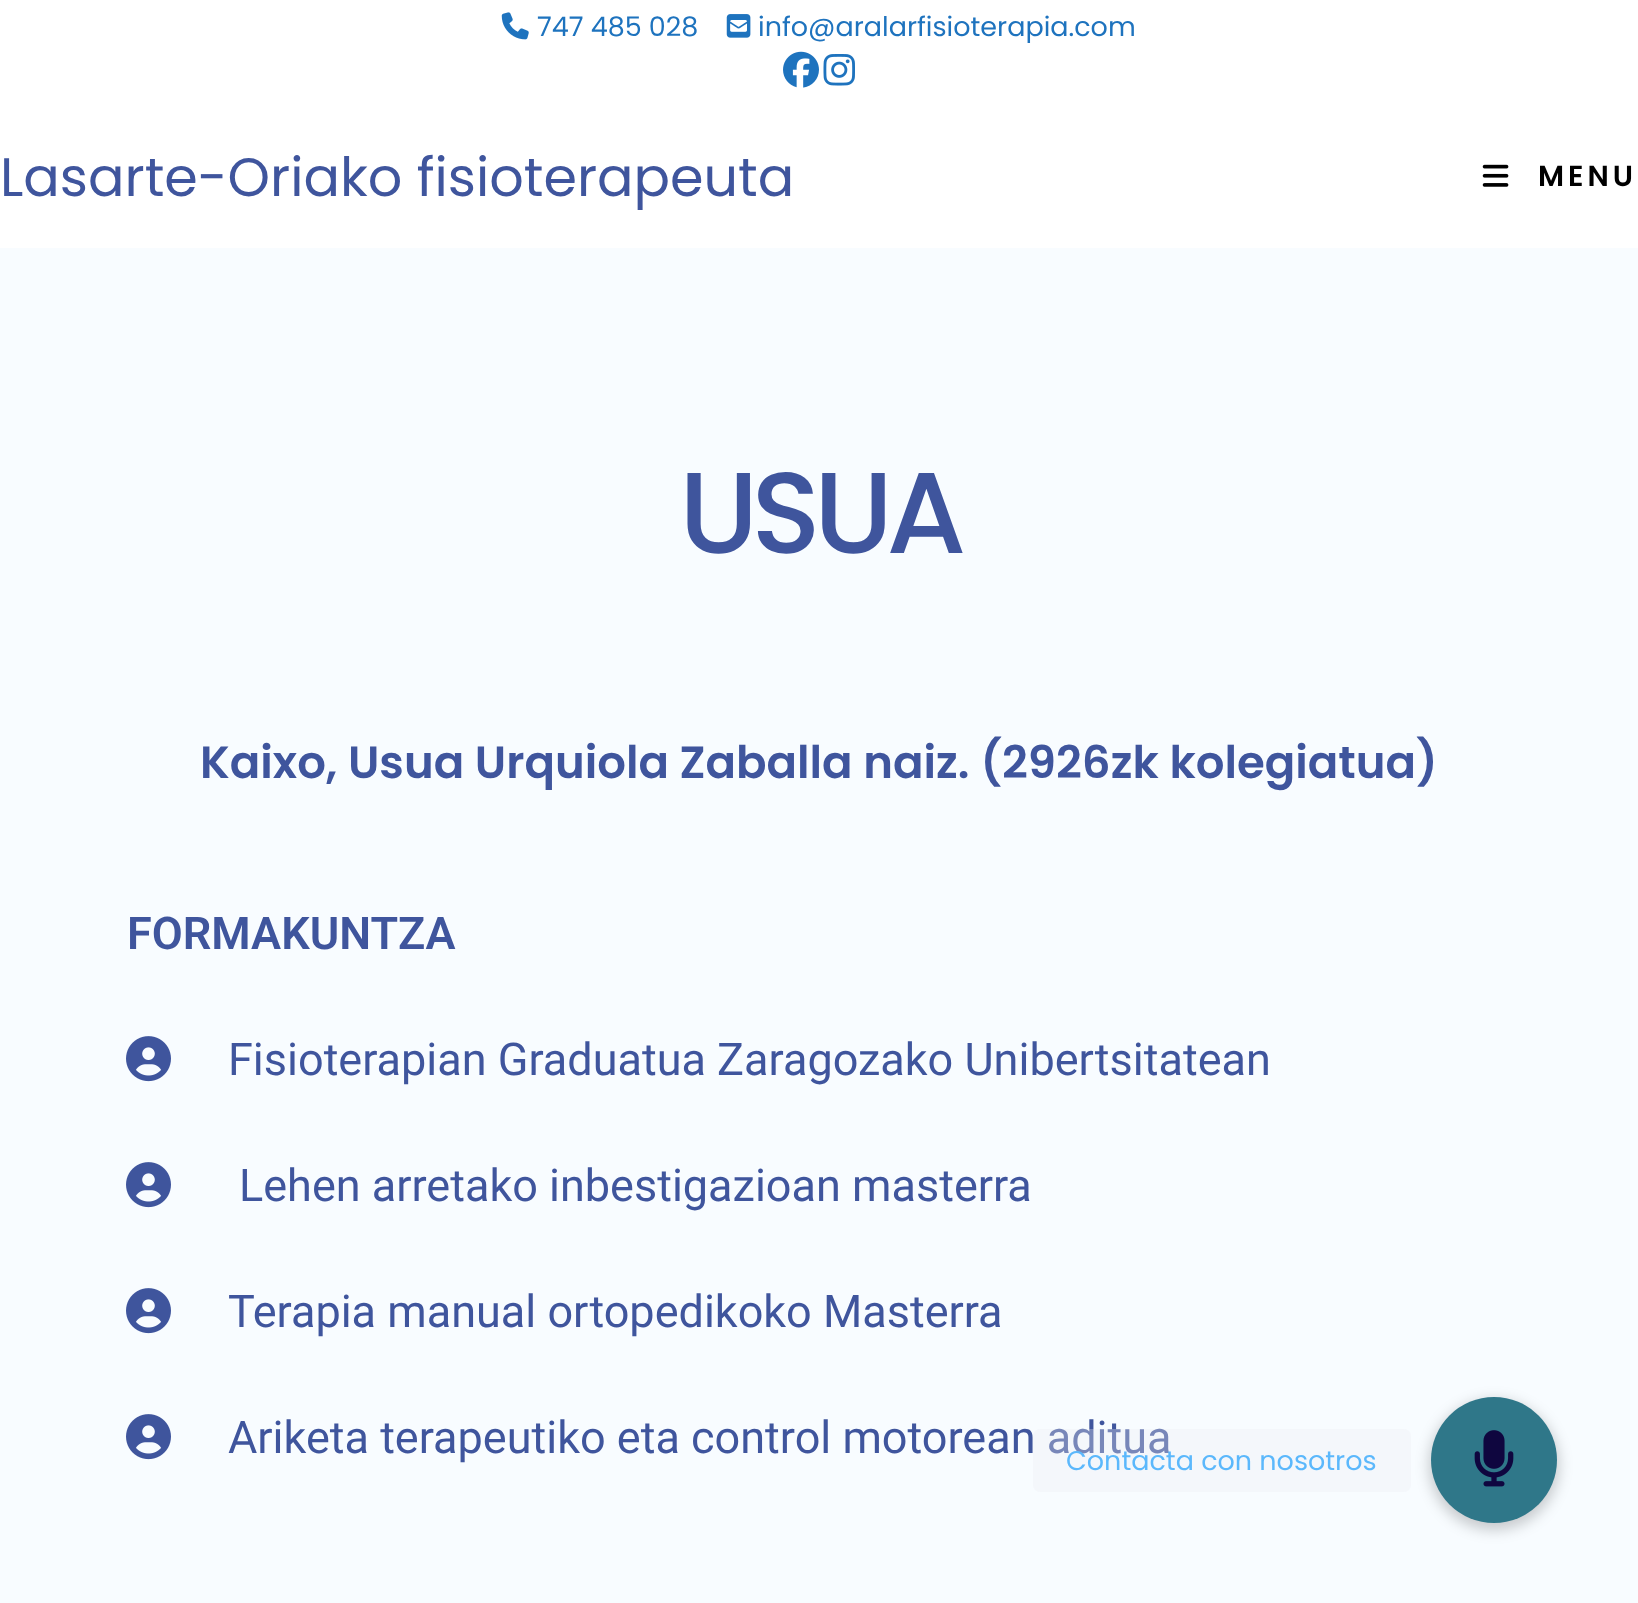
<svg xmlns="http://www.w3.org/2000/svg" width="1638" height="1603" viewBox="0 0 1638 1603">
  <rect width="100%" height="100%" fill="#f8fcff"/>
  <path d="M0 0h1638v248H0z" fill="#fff"/>
  <image x="501" y="12" width="28" height="28" href="img/1.png"/>
  <image x="726" y="14" width="25" height="24" href="img/2.png"/>
  <image x="783" y="51" width="36" height="37" href="img/3.png"/>
  <image x="823" y="54" width="32" height="32" href="img/4.png"/>
  <image x="1482" y="164" width="27" height="23" href="img/5.png"/>
  <image x="126" y="1036" width="45" height="46" href="img/6.png"/>
  <image x="126" y="1162" width="45" height="46" href="img/6.png"/>
  <image x="126" y="1288" width="45" height="46" href="img/6.png"/>
  <image x="126" y="1414" width="45" height="46" href="img/6.png"/>
  <rect x="1429" y="1400" width="130" height="130" rx="65" fill="#00000033" filter="blur(7px)"/>
  <circle cx="1494" cy="1460" r="63" fill="#2f7789"/>
  <image x="1474" y="1430" width="40" height="57" href="img/7.png"/>
  <g font-family="Poppins" font-size="27" fill="#1e73be">
    <text x="537" y="36">747 485 028</text>
    <text x="758" y="36">info@aralarfisioterapia.com</text>
  </g>
  <text x="0" y="196" font-family="Poppins" font-size="54" fill="#3f559d">Lasarte-Oriako fisioterapeuta</text>
  <text x="1538" y="186" font-family="Poppins" font-size="29" font-weight="600" letter-spacing="4" fill="#000">MENU</text>
  <text x="679" y="553" font-family="Poppins" font-size="115" font-weight="500" letter-spacing="-7" fill="#3f559d">USUA</text>
  <text x="200" y="778" font-family="Poppins" font-size="45" font-weight="600" fill="#3f559d">Kaixo, Usua Urquiola Zaballa naiz. (2926zk kolegiatua)</text>
  <text x="127" y="949" font-family="Roboto" font-size="45" font-weight="600" fill="#3f559d">FORMAKUNTZA</text>
  <g font-family="Roboto" font-size="45" fill="#3f559d">
    <text x="228" y="1075">Fisioterapian Graduatua Zaragozako Unibertsitatean</text>
    <text x="239" y="1201">Lehen arretako inbestigazioan masterra</text>
    <text x="228" y="1327">Terapia manual ortopedikoko Masterra</text>
    <text x="228" y="1453">Ariketa terapeutiko eta control motorean aditua</text>
  </g>
  <rect x="1033" y="1429" width="378" height="63" rx="7" fill="#ededf354"/>
  <text x="1066" y="1470" font-family="Poppins" font-size="27" fill="#5bb8fc">Contacta con nosotros</text>
</svg>
